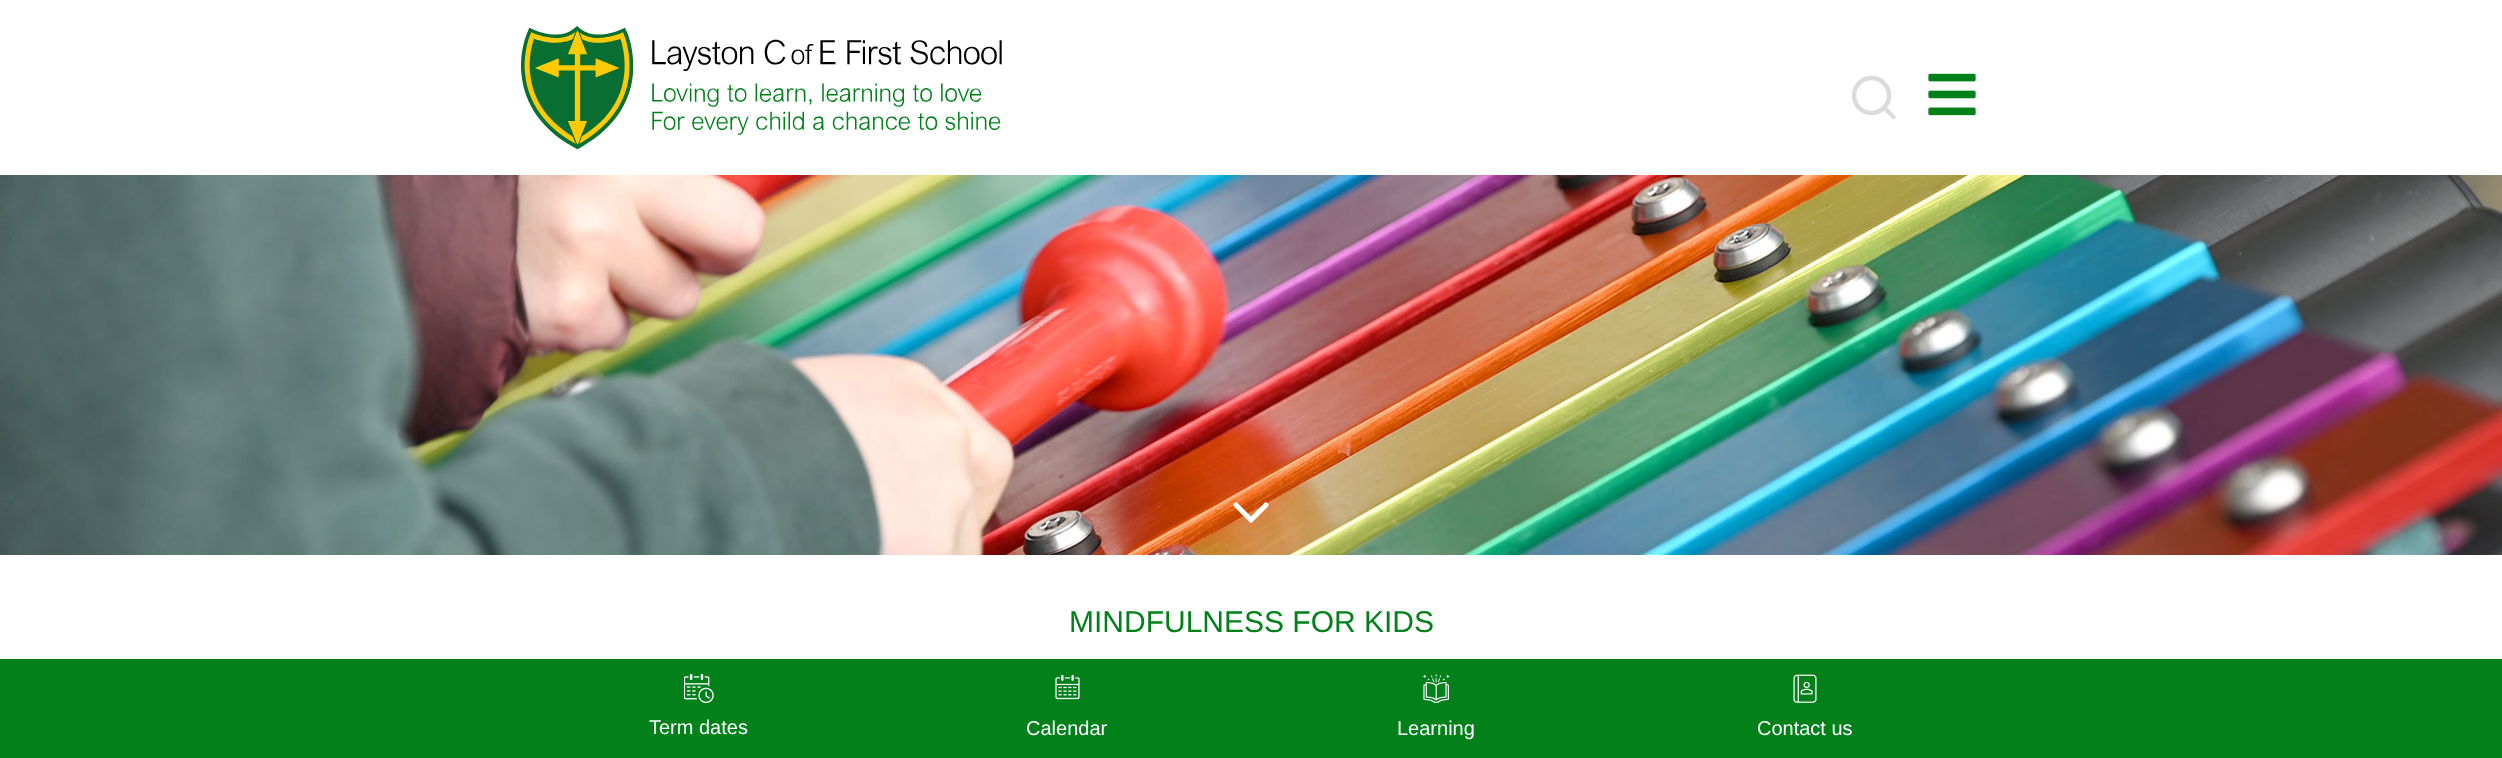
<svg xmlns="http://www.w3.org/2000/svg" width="2502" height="758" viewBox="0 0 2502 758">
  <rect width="100%" height="100%" fill="#fff"/>
  <image x="521" y="26" width="481" height="124" href="img/1.png"/>
  <circle cx="1871.5" cy="95.5" r="17.5" fill="none" stroke="#dbdbdb" stroke-width="4.4"/>
  <path d="M1893.5 117L1884 107.5" fill="none" stroke="#dbdbdb" stroke-width="4.4" stroke-linecap="round" stroke-linejoin="round"/>
  <image x="1928" y="73" width="48" height="43" href="img/2.png"/>
  <image x="0" y="175" width="2502" height="380" href="img/3.png"/>
  <path d="M1236 505L1251 520L1266 505" fill="none" stroke="#fff" stroke-width="5" stroke-linecap="round" stroke-linejoin="round"/>
  <path d="M0 659h2502v99H0z" fill="#02811b"/>
  <image x="684" y="674" width="30" height="29" href="img/4.png"/>
  <image x="1055" y="674" width="25" height="26" href="img/5.png"/>
  <image x="1423" y="674" width="27" height="29" href="img/6.png"/>
  <image x="1793" y="674" width="24" height="29" href="img/7.png"/>
  <text x="1069" y="632" font-family="Liberation Sans" font-size="30" fill="#02811b">MINDFULNESS FOR KIDS</text>
  <g font-family="Liberation Sans" font-size="20" fill="#fff">
    <text x="649" y="734">Term dates</text>
    <text x="1026" y="735">Calendar</text>
    <text x="1397" y="735">Learning</text>
    <text x="1757" y="735">Contact us</text>
  </g>
</svg>
